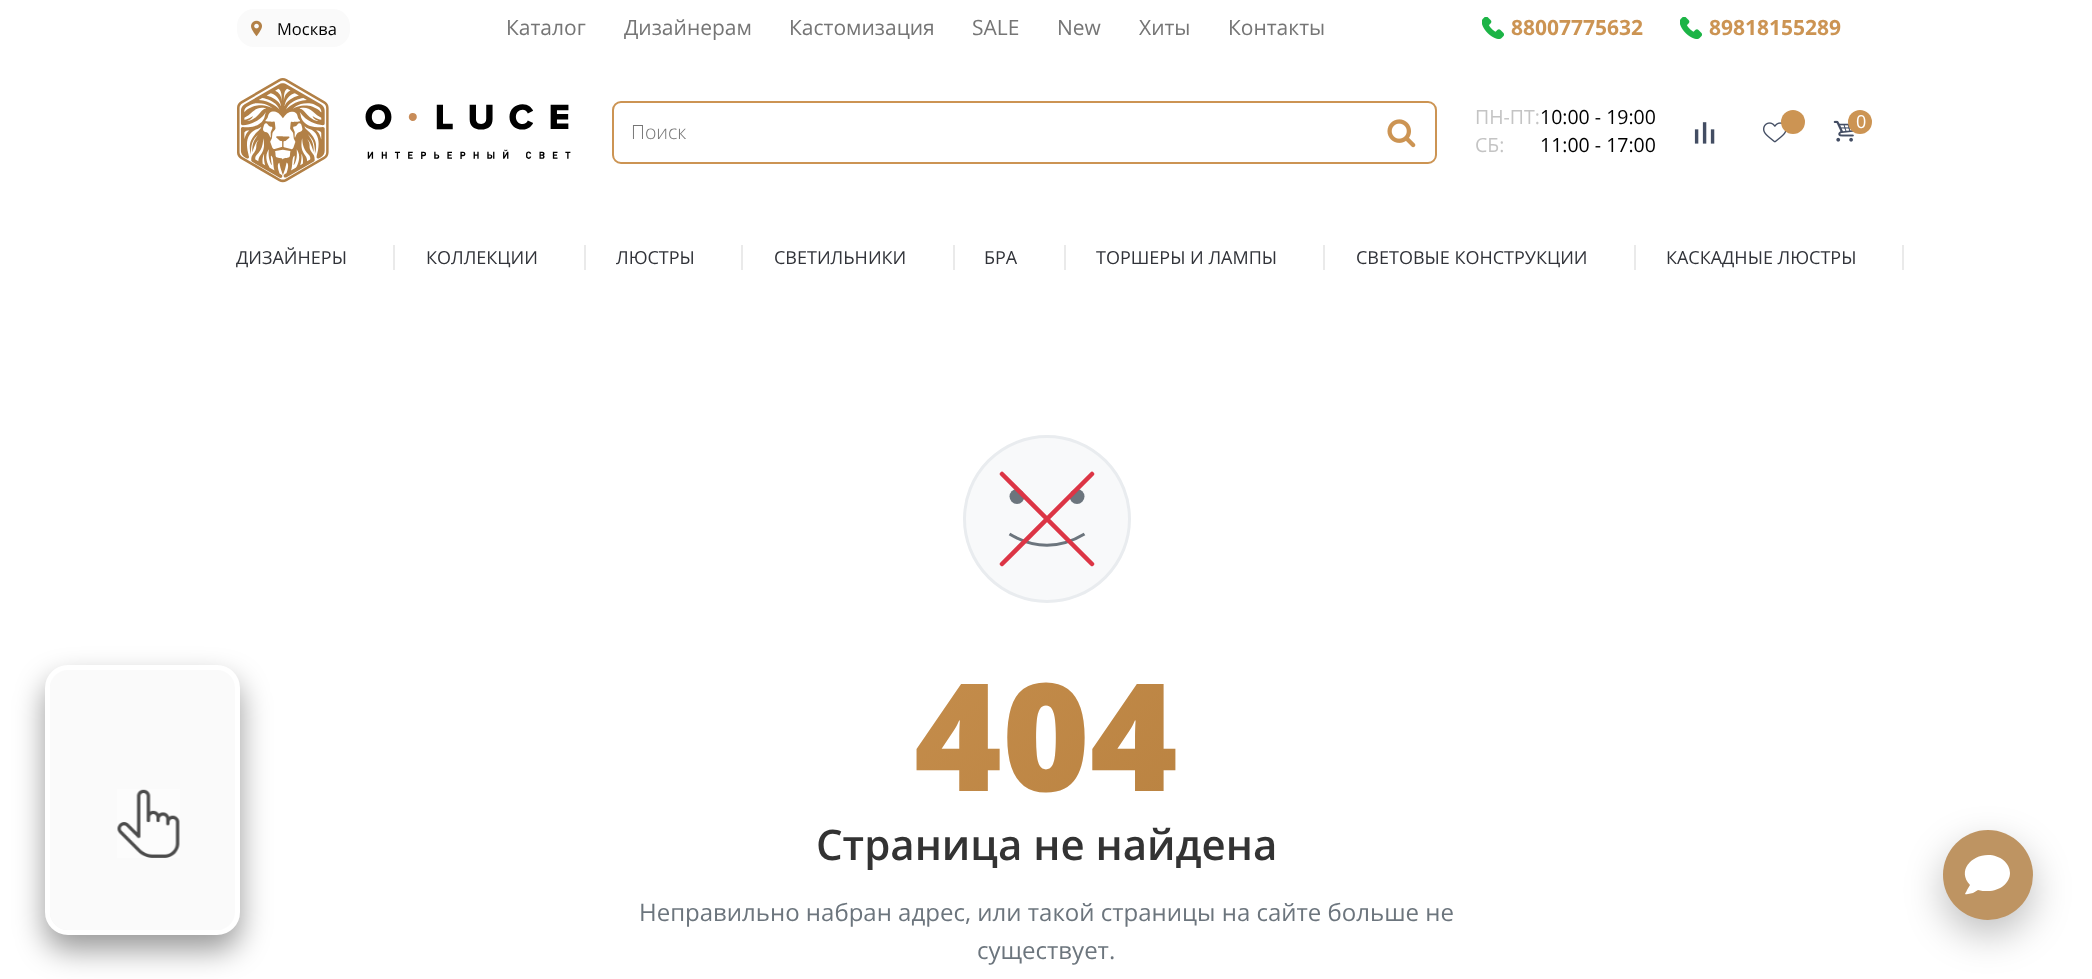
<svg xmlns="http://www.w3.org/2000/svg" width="2092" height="979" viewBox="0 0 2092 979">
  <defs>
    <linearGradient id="g1" gradientUnits="userSpaceOnUse" x1="784" y1="470" x2="1309" y2="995"><stop offset="0" stop-color="#cc9453"/><stop offset="1" stop-color="#b37c3a"/></linearGradient>
  </defs>
  <rect width="100%" height="100%" fill="#fff"/>
  <rect x="237" y="9" width="113" height="38" rx="17" fill="#fafafa"/>
  <image x="251" y="20" width="11" height="17" href="img/1.png"/>
  <image x="1482" y="17" width="22" height="22" href="img/2.png"/>
  <image x="1680" y="17" width="22" height="22" href="img/2.png"/>
  <image x="237" y="78" width="334" height="105" href="img/3.png"/>
  <image x="1694" y="122" width="21" height="22" href="img/4.png"/>
  <image x="1763" y="122" width="24" height="21" href="img/5.png"/>
  <circle cx="1793" cy="122" r="12" fill="#cc9453"/>
  <image x="1833" y="120" width="21" height="22" href="img/6.png"/>
  <circle cx="1860" cy="122" r="12" fill="#cc9453"/>
  <rect x="613" y="102" width="823" height="61" rx="8" fill="none" stroke="#cc9453" stroke-width="2"/>
  <image x="1387" y="119" width="29" height="29" href="img/7.png"/>
  <path d="M393 245h2v25H393z" fill="#eaeaea"/>
  <path d="M584 245h2v25H584z" fill="#eaeaea"/>
  <path d="M741 245h2v25H741z" fill="#eaeaea"/>
  <path d="M953 245h2v25H953z" fill="#eaeaea"/>
  <path d="M1064 245h2v25H1064z" fill="#eaeaea"/>
  <path d="M1323 245h2v25H1323z" fill="#eaeaea"/>
  <path d="M1634 245h2v25H1634z" fill="#eaeaea"/>
  <path d="M1902 245h2v25H1902z" fill="#eaeaea"/>
  <rect x="45" y="680" width="195" height="270" rx="23" fill="#00000066" filter="blur(15px)"/>
  <rect x="47.5" y="667.5" width="190" height="265" rx="20.5" fill="#eee" stroke="#fff" stroke-width="5"/>
  <rect x="50" y="669" width="186" height="261" rx="18" fill="#ffffffb3"/>
  <image x="117" y="789" width="63" height="69" href="img/8.png"/>
  <circle cx="1047" cy="519" r="82.5" fill="#f8f9fa" stroke="#e9ecef" stroke-width="3"/>
  <circle cx="1017" cy="496.5" r="7.5" fill="#6c757d"/>
  <circle cx="1077" cy="496.5" r="7.5" fill="#6c757d"/>
  <path d="M1009.5 534C1034.5 549 1059.5 549 1084.5 534" fill="none" stroke="#6c757d" stroke-width="3"/>
  <path d="M1002 474L1092 564M1092 474L1002 564" fill="none" stroke="#dc3545" stroke-width="4.5" stroke-linecap="round"/>
  <rect x="1943" y="845" width="90" height="90" rx="45" fill="#00000040" filter="blur(19px)"/>
  <circle cx="1988" cy="875" r="45" fill="#be9462"/>
  <path d="M1988 855C1971 855 1957 871 1970 885L1967 890C1966 893 1963 895 1968 894L1973 893L1978 890C1981 891 1984 891 1988 891C2000 891 2010 883 2010 873C2010 863 2000 855 1988 855Z" fill="#fff"/>
  <text x="277" y="35" font-family="Open Sans" font-size="16.5" fill="#000">Москва</text>
  <g font-family="Open Sans" font-size="21" fill="#757575">
    <text x="506" y="35">Каталог</text>
    <text x="624" y="35">Дизайнерам</text>
    <text x="789" y="35">Кастомизация</text>
    <text x="972" y="35">SALE</text>
    <text x="1057" y="35">New</text>
    <text x="1139" y="35">Хиты</text>
    <text x="1228" y="35">Контакты</text>
  </g>
  <g font-family="Open Sans" font-size="21" font-weight="bold" fill="#cc9453">
    <text x="1511" y="35">88007775632</text>
    <text x="1709" y="35">89818155289</text>
  </g>
  <text x="1475" y="124" font-family="Open Sans" font-size="19.5" fill="#c4c4c4">ПН-ПТ:</text>
  <text x="1540" y="124" font-family="Open Sans" font-size="19.5" fill="#000">10:00 - 19:00</text>
  <text x="1475" y="152" font-family="Open Sans" font-size="19.5" fill="#c4c4c4">СБ:</text>
  <text x="1540" y="152" font-family="Open Sans" font-size="19.5" fill="#000">11:00 - 17:00</text>
  <text x="1856" y="128" font-family="Open Sans" font-size="18" fill="#fff">0</text>
  <text x="631" y="139" font-family="Open Sans" font-size="19.5" font-weight="300" fill="#757575">Поиск</text>
  <g font-family="Open Sans" font-size="18" fill="#313339">
    <text x="236" y="264">ДИЗАЙНЕРЫ</text>
    <text x="426" y="264">КОЛЛЕКЦИИ</text>
    <text x="616" y="264">ЛЮСТРЫ</text>
    <text x="774" y="264">СВЕТИЛЬНИКИ</text>
    <text x="984" y="264">БРА</text>
    <text x="1096" y="264">ТОРШЕРЫ И ЛАМПЫ</text>
    <text x="1356" y="264">СВЕТОВЫЕ КОНСТРУКЦИИ</text>
    <text x="1666" y="264">КАСКАДНЫЕ ЛЮСТРЫ</text>
  </g>
  <text x="914" y="791" font-family="Open Sans" font-size="150" font-weight="800" fill="url(#g1)">404</text>
  <text x="816" y="860" font-family="Open Sans" font-size="42" font-weight="600" fill="#333">Страница не найдена</text>
  <g font-family="Open Sans" font-size="24" fill="#6c757d">
    <text x="639" y="921">Неправильно набран адрес, или такой страницы на сайте больше не</text>
    <text x="977" y="959">существует.</text>
  </g>
</svg>
